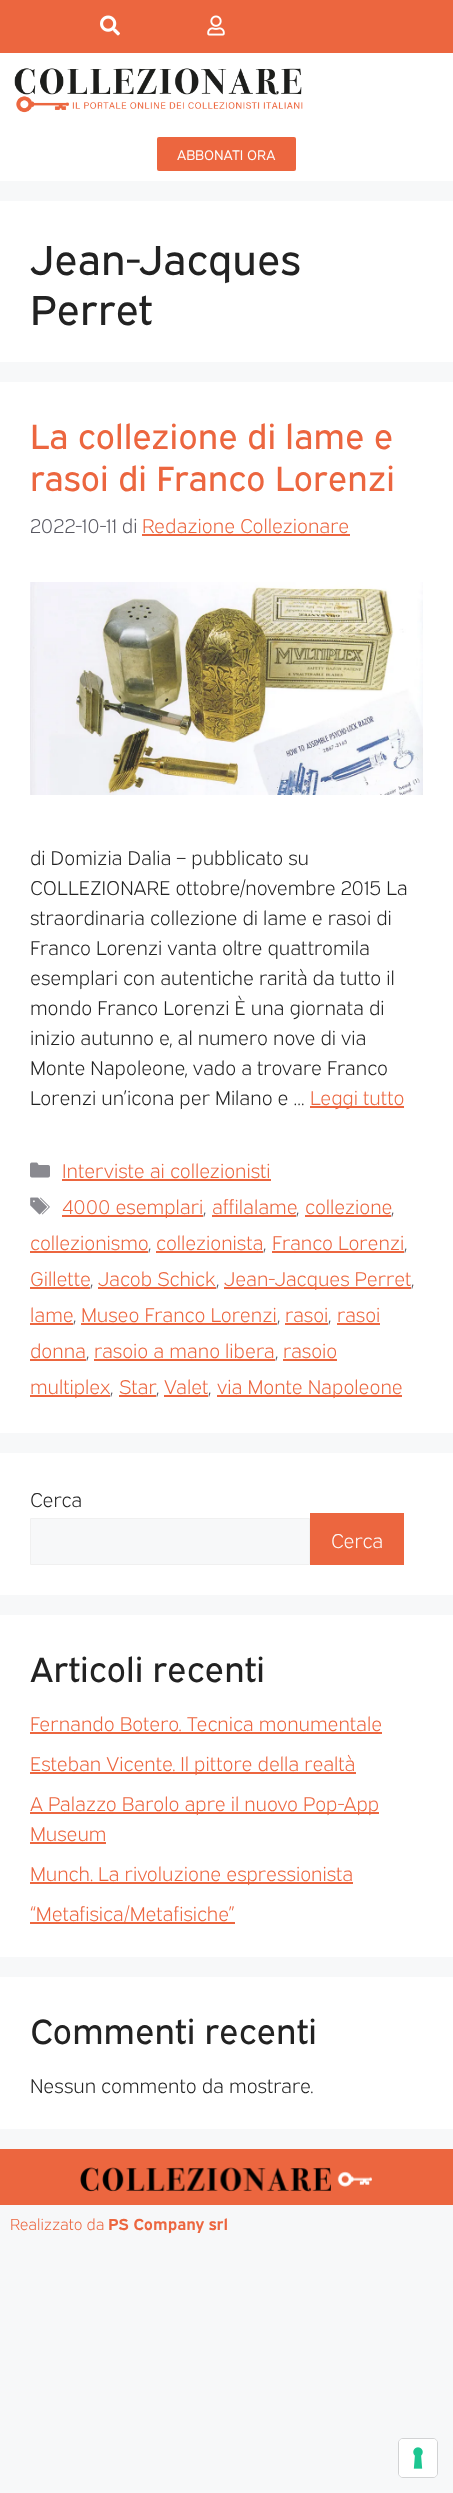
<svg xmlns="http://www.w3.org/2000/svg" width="453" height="2493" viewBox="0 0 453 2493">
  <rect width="100%" height="100%" fill="#f7f8f9"/>
  <path d="M0 0h453v53H0z" fill="#ec663f"/>
  <image x="100" y="15" width="20" height="21" href="img/1.png"/>
  <image x="207" y="15" width="18" height="21" href="img/2.png"/>
  <path d="M0 53h453v128H0z" fill="#fff"/>
  <image x="14" y="68" width="289" height="45" href="img/3.png"/>
  <rect x="157" y="137" width="139" height="34" rx="2" fill="#ec663f"/>
  <path d="M0 201h453v161H0z" fill="#fff"/>
  <path d="M0 382h453v1051H0z" fill="#fff"/>
  <path d="M142 534h208v2H142z" fill="#ec663f"/>
  <image x="30" y="582" width="393" height="213" href="img/4.png"/>
  <path d="M310 1106h94v2H310z" fill="#ec663f"/>
  <image x="30" y="1162" width="20" height="16" href="img/5.png"/>
  <path d="M62 1179h209v2H62z" fill="#ec663f"/>
  <image x="30" y="1197" width="20" height="18" href="img/6.png"/>
  <path d="M62 1215h141v2H62z" fill="#ec663f"/>
  <path d="M212 1215h84v2H212z" fill="#ec663f"/>
  <path d="M305 1215h86v2H305z" fill="#ec663f"/>
  <path d="M30 1251h118v2H30z" fill="#ec663f"/>
  <path d="M156 1251h107v2H156z" fill="#ec663f"/>
  <path d="M272 1251h132v2H272z" fill="#ec663f"/>
  <path d="M30 1287h60v2H30z" fill="#ec663f"/>
  <path d="M98 1287h118v2H98z" fill="#ec663f"/>
  <path d="M224 1287h187v2H224z" fill="#ec663f"/>
  <path d="M30 1323h43v2H30z" fill="#ec663f"/>
  <path d="M81 1323h196v2H81z" fill="#ec663f"/>
  <path d="M285 1323h43v2H285z" fill="#ec663f"/>
  <path d="M337 1323h43v2H337z" fill="#ec663f"/>
  <path d="M30 1359h56v2H30z" fill="#ec663f"/>
  <path d="M94 1359h181v2H94z" fill="#ec663f"/>
  <path d="M283 1359h54v2H283z" fill="#ec663f"/>
  <path d="M30 1395h80v2H30z" fill="#ec663f"/>
  <path d="M119 1395h37v2H119z" fill="#ec663f"/>
  <path d="M164 1395h44v2H164z" fill="#ec663f"/>
  <path d="M217 1395h185v2H217z" fill="#ec663f"/>
  <path d="M0 1453h453v142H0z" fill="#fff"/>
  <path d="M30.5 1518.5h279v46H30.5z" fill="#f7f8f9" stroke="#f0f0f0"/>
  <path d="M310 1513h94v52H310z" fill="#ec663f"/>
  <path d="M0 1615h453v342H0z" fill="#fff"/>
  <path d="M30 1732h352v2H30z" fill="#ec663f"/>
  <path d="M30 1772h326v2H30z" fill="#ec663f"/>
  <path d="M30 1812h349v2H30z" fill="#ec663f"/>
  <path d="M30 1842h76v2H30z" fill="#ec663f"/>
  <path d="M30 1882h323v2H30z" fill="#ec663f"/>
  <path d="M30 1922h205v2H30z" fill="#ec663f"/>
  <path d="M0 1977h453v152H0z" fill="#fff"/>
  <path d="M0 2149h453v56H0z" fill="#ec663f"/>
  <image x="80" y="2167" width="292" height="25" href="img/7.png"/>
  <rect x="398.5" y="2438.5" width="39" height="39" rx="4.5" fill="none" stroke="#d2d3d4"/>
  <rect x="399" y="2439" width="38" height="38" rx="4" fill="#fff"/>
  <image x="413" y="2447" width="10" height="22" href="img/8.png"/>
  <text x="177" y="160" font-family="'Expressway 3'" font-size="14" fill="#fdfdfd">ABBONATI ORA</text>
  <g font-family="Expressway" font-size="42" fill="#222">
    <text x="30" y="275">Jean-Jacques</text>
    <text x="30" y="325">Perret</text>
  </g>
  <g font-family="Expressway" font-size="35" fill="#ec663f">
    <text x="30" y="449">La collezione di lame e</text>
    <text x="30" y="491">rasoi di Franco Lorenzi</text>
  </g>
  <text x="30" y="533" font-family="'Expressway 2'" font-size="20" fill="#575760">2022-10-11 di</text>
  <text x="142" y="533" font-family="'Expressway 2'" font-size="20" fill="#ec663f">Redazione Collezionare</text>
  <g font-family="'Expressway 2'" font-size="20" fill="#222">
    <text x="30" y="865">di Domizia Dalia – pubblicato su</text>
    <text x="30" y="895">COLLEZIONARE ottobre/novembre 2015 La</text>
    <text x="30" y="925">straordinaria collezione di lame e rasoi di</text>
    <text x="30" y="955">Franco Lorenzi vanta oltre quattromila</text>
    <text x="30" y="985">esemplari con autentiche rarità da tutto il</text>
    <text x="30" y="1015">mondo Franco Lorenzi È una giornata di</text>
    <text x="30" y="1045">inizio autunno e, al numero nove di via</text>
    <text x="30" y="1075">Monte Napoleone, vado a trovare Franco</text>
    <text x="30" y="1105">Lorenzi un’icona per Milano e …</text>
  </g>
  <g font-family="'Expressway 2'" font-size="20" fill="#ec663f">
    <text x="310" y="1105">Leggi tutto</text>
    <text x="62" y="1178">Interviste ai collezionisti</text>
    <text x="62" y="1214">4000 esemplari</text>
  </g>
  <text x="203" y="1214" font-family="'Expressway 2'" font-size="20" fill="#575760">,</text>
  <text x="212" y="1214" font-family="'Expressway 2'" font-size="20" fill="#ec663f">affilalame</text>
  <text x="296" y="1214" font-family="'Expressway 2'" font-size="20" fill="#575760">,</text>
  <text x="305" y="1214" font-family="'Expressway 2'" font-size="20" fill="#ec663f">collezione</text>
  <text x="391" y="1214" font-family="'Expressway 2'" font-size="20" fill="#575760">,</text>
  <text x="30" y="1250" font-family="'Expressway 2'" font-size="20" fill="#ec663f">collezionismo</text>
  <text x="148" y="1250" font-family="'Expressway 2'" font-size="20" fill="#575760">,</text>
  <text x="156" y="1250" font-family="'Expressway 2'" font-size="20" fill="#ec663f">collezionista</text>
  <text x="263" y="1250" font-family="'Expressway 2'" font-size="20" fill="#575760">,</text>
  <text x="272" y="1250" font-family="'Expressway 2'" font-size="20" fill="#ec663f">Franco Lorenzi</text>
  <text x="404" y="1250" font-family="'Expressway 2'" font-size="20" fill="#575760">,</text>
  <text x="30" y="1286" font-family="'Expressway 2'" font-size="20" fill="#ec663f">Gillette</text>
  <text x="90" y="1286" font-family="'Expressway 2'" font-size="20" fill="#575760">,</text>
  <text x="98" y="1286" font-family="'Expressway 2'" font-size="20" fill="#ec663f">Jacob Schick</text>
  <text x="216" y="1286" font-family="'Expressway 2'" font-size="20" fill="#575760">,</text>
  <text x="224" y="1286" font-family="'Expressway 2'" font-size="20" fill="#ec663f">Jean-Jacques Perret</text>
  <text x="411" y="1286" font-family="'Expressway 2'" font-size="20" fill="#575760">,</text>
  <text x="30" y="1322" font-family="'Expressway 2'" font-size="20" fill="#ec663f">lame</text>
  <text x="73" y="1322" font-family="'Expressway 2'" font-size="20" fill="#575760">,</text>
  <text x="81" y="1322" font-family="'Expressway 2'" font-size="20" fill="#ec663f">Museo Franco Lorenzi</text>
  <text x="277" y="1322" font-family="'Expressway 2'" font-size="20" fill="#575760">,</text>
  <text x="285" y="1322" font-family="'Expressway 2'" font-size="20" fill="#ec663f">rasoi</text>
  <text x="328" y="1322" font-family="'Expressway 2'" font-size="20" fill="#575760">,</text>
  <g font-family="'Expressway 2'" font-size="20" fill="#ec663f">
    <text x="337" y="1322">rasoi</text>
    <text x="30" y="1358">donna</text>
  </g>
  <text x="86" y="1358" font-family="'Expressway 2'" font-size="20" fill="#575760">,</text>
  <text x="94" y="1358" font-family="'Expressway 2'" font-size="20" fill="#ec663f">rasoio a mano libera</text>
  <text x="275" y="1358" font-family="'Expressway 2'" font-size="20" fill="#575760">,</text>
  <g font-family="'Expressway 2'" font-size="20" fill="#ec663f">
    <text x="283" y="1358">rasoio</text>
    <text x="30" y="1394">multiplex</text>
  </g>
  <text x="110" y="1394" font-family="'Expressway 2'" font-size="20" fill="#575760">,</text>
  <text x="119" y="1394" font-family="'Expressway 2'" font-size="20" fill="#ec663f">Star</text>
  <text x="156" y="1394" font-family="'Expressway 2'" font-size="20" fill="#575760">,</text>
  <text x="164" y="1394" font-family="'Expressway 2'" font-size="20" fill="#ec663f">Valet</text>
  <text x="208" y="1394" font-family="'Expressway 2'" font-size="20" fill="#575760">,</text>
  <text x="217" y="1394" font-family="'Expressway 2'" font-size="20" fill="#ec663f">via Monte Napoleone</text>
  <text x="30" y="1507" font-family="'Expressway 2'" font-size="20" fill="#222">Cerca</text>
  <text x="331" y="1548" font-family="'Expressway 2'" font-size="20" fill="#fdfdfd">Cerca</text>
  <text x="30" y="1682" font-family="Expressway" font-size="35" fill="#222">Articoli recenti</text>
  <g font-family="'Expressway 2'" font-size="20" fill="#ec663f">
    <text x="30" y="1731">Fernando Botero. Tecnica monumentale</text>
    <text x="30" y="1771">Esteban Vicente. Il pittore della realtà</text>
    <text x="30" y="1811">A Palazzo Barolo apre il nuovo Pop-App</text>
    <text x="30" y="1841">Museum</text>
    <text x="30" y="1881">Munch. La rivoluzione espressionista</text>
    <text x="30" y="1921">“Metafisica/Metafisiche”</text>
  </g>
  <text x="30" y="2044" font-family="Expressway" font-size="35" fill="#222">Commenti recenti</text>
  <text x="30" y="2093" font-family="'Expressway 2'" font-size="20" fill="#222">Nessun commento da mostrare.</text>
  <text x="10" y="2230" font-family="'Expressway 2'" font-size="16" fill="#ec663f">Realizzato da</text>
  <text x="108" y="2230" font-family="Expressway" font-size="16" font-weight="bold" fill="#ec663f">PS Company srl</text>
</svg>
